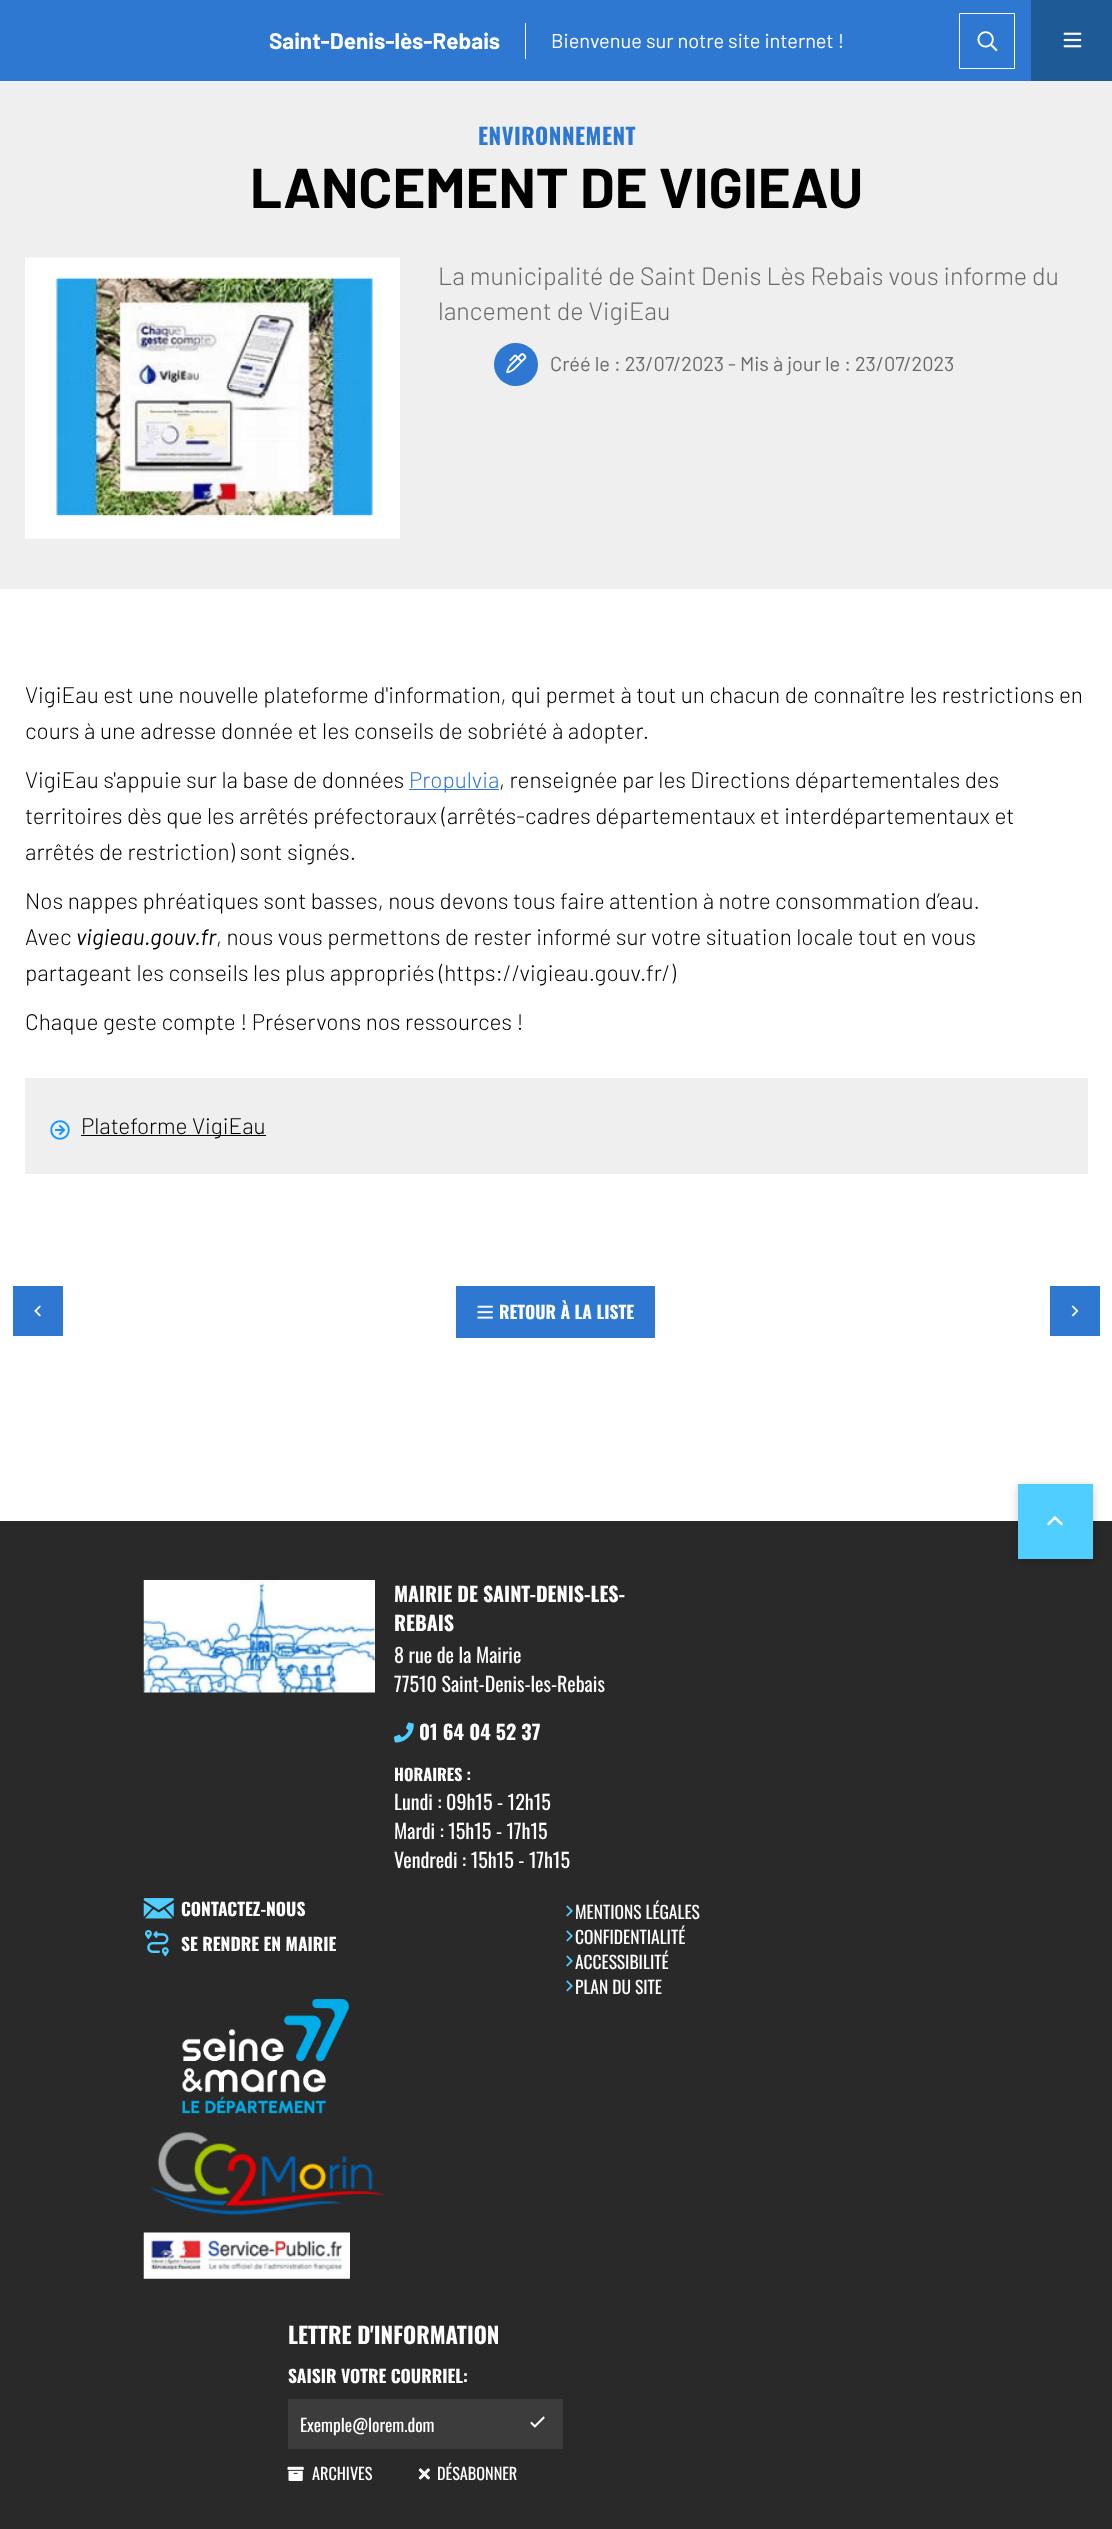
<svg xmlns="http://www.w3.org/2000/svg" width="1112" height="2529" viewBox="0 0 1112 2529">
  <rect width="100%" height="100%" fill="#fff"/>
  <path d="M0 0h1031v81H0z" fill="#2e78d2"/>
  <path d="M525 23h1v36H525z" fill="#fff"/>
  <path d="M959.5 13.5h55v55H959.5z" fill="none" stroke="#fff"/>
  <image x="977" y="31" width="21" height="21" href="img/1.png"/>
  <path d="M1031 0h81v81H1031z" fill="#1d5a96"/>
  <image x="1063" y="32" width="19" height="16" href="img/2.png"/>
  <path d="M0 81h1112v508H0z" fill="#efefef"/>
  <image x="25" y="257" width="375" height="282" href="img/3.png"/>
  <rect x="494" y="343" width="44" height="43" rx="21.5" fill="#2e78d2"/>
  <image x="506" y="353" width="21" height="21" href="img/4.png"/>
  <path d="M409 789h90v1H409z" fill="#2e78d2"/>
  <path d="M25 1078h1063v96H25z" fill="#efefef"/>
  <image x="50" y="1120" width="20" height="20" href="img/5.png"/>
  <path d="M81 1135h185v1H81z" fill="#000"/>
  <path d="M13 1286h50v50H13z" fill="#2e78d2"/>
  <image x="34" y="1305" width="7" height="12" href="img/6.png"/>
  <path d="M456 1286h199v52H456z" fill="#2e78d2"/>
  <image x="477" y="1305" width="16" height="14" href="img/7.png"/>
  <path d="M1050 1286h50v50H1050z" fill="#2e78d2"/>
  <image x="1071" y="1305" width="8" height="12" href="img/8.png"/>
  <path d="M0 1521h1112v1008H0z" fill="#292929"/>
  <path d="M1018 1486h75v75H1018z" fill="#00000033" filter="blur(4px)"/>
  <path d="M1018 1484h75v75H1018z" fill="#4fceff"/>
  <image x="1047" y="1516" width="16" height="10" href="img/9.png"/>
  <image x="143" y="1580" width="232" height="113" href="img/10.png"/>
  <image x="394" y="1722" width="20" height="21" href="img/11.png"/>
  <image x="143" y="1898" width="31" height="21" href="img/12.png"/>
  <image x="145" y="1930" width="24" height="27" href="img/13.png"/>
  <image x="182" y="1999" width="167" height="115" href="img/14.png"/>
  <image x="150" y="2132" width="235" height="84" href="img/15.png"/>
  <image x="143" y="2232" width="207" height="47" href="img/16.png"/>
  <image x="566" y="1905" width="7" height="12" href="img/17.png"/>
  <image x="566" y="1930" width="7" height="12" href="img/17.png"/>
  <image x="566" y="1955" width="7" height="12" href="img/17.png"/>
  <image x="566" y="1980" width="7" height="12" href="img/17.png"/>
  <path d="M288 2399h275v50H288z" fill="#3c3c3c"/>
  <image x="530" y="2416" width="15" height="12" href="img/18.png"/>
  <image x="287" y="2466" width="17" height="15" href="img/19.png"/>
  <image x="418" y="2468" width="12" height="12" href="img/20.png"/>
  <text x="269" y="49" font-family="Barlow" font-size="22.5" font-weight="bold" fill="#fff">Saint-Denis-lès-Rebais</text>
  <text x="551" y="48" font-family="Barlow" font-size="20" fill="#fff">Bienvenue sur notre site internet !</text>
  <text x="478" y="145" font-family="Oswald" font-size="22.5" font-weight="bold" letter-spacing="0.5" fill="#2e78d2">ENVIRONNEMENT</text>
  <text x="250" y="208" font-family="Barlow" font-size="56.25" font-weight="bold" fill="#000">LANCEMENT DE VIGIEAU</text>
  <g font-family="Barlow" font-size="25" font-weight="300" fill="#696969">
    <text x="438" y="285">La municipalité de Saint Denis Lès Rebais vous informe du</text>
    <text x="438" y="320">lancement de VigiEau</text>
  </g>
  <text x="550" y="371" font-family="Barlow" font-size="20" fill="#696969">Créé le : 23/07/2023 - Mis à jour le : 23/07/2023</text>
  <g font-family="Barlow" font-size="22.5" font-weight="300" fill="#000">
    <text x="25" y="703">VigiEau est une nouvelle plateforme d'information, qui permet à tout un chacun de connaître les restrictions en</text>
    <text x="25" y="739">cours à une adresse donnée et les conseils de sobriété à adopter.</text>
    <text x="25" y="788">VigiEau s'appuie sur la base de données</text>
  </g>
  <text x="409" y="788" font-family="Barlow" font-size="22.5" font-weight="300" fill="#2e78d2">Propulvia</text>
  <g font-family="Barlow" font-size="22.5" font-weight="300" fill="#000">
    <text x="499" y="788">, renseignée par les Directions départementales des</text>
    <text x="25" y="824">territoires dès que les arrêtés préfectoraux (arrêtés-cadres départementaux et interdépartementaux et</text>
    <text x="25" y="860">arrêtés de restriction) sont signés.</text>
    <text x="25" y="909">Nos nappes phréatiques sont basses, nous devons tous faire attention à notre consommation d’eau.</text>
    <text x="25" y="945">Avec</text>
  </g>
  <text x="76" y="945" font-family="Barlow" font-size="22.5" font-style="italic" fill="#000">vigieau.gouv.fr</text>
  <g font-family="Barlow" font-size="22.5" font-weight="300" fill="#000">
    <text x="216" y="945">, nous vous permettons de rester informé sur votre situation locale tout en vous</text>
    <text x="25" y="981">partageant les conseils les plus appropriés (https://vigieau.gouv.fr/)</text>
    <text x="25" y="1030">Chaque geste compte ! Préservons nos ressources !</text>
    <text x="81" y="1134">Plateforme VigiEau</text>
  </g>
  <text x="499" y="1319" font-family="Oswald" font-size="17.5" font-weight="bold" fill="#fff">RETOUR À LA LISTE</text>
  <g font-family="Oswald" font-size="20" font-weight="bold" fill="#fff">
    <text x="394" y="1602">MAIRIE DE SAINT-DENIS-LES-</text>
    <text x="394" y="1631">REBAIS</text>
  </g>
  <g font-family="Oswald" font-size="20" fill="#fff">
    <text x="394" y="1663">8 rue de la Mairie</text>
    <text x="394" y="1692">77510 Saint-Denis-les-Rebais</text>
  </g>
  <text x="419" y="1740" font-family="Oswald" font-size="20" font-weight="bold" fill="#fff">01 64 04 52 37</text>
  <text x="394" y="1781" font-family="Oswald" font-size="16.25" font-weight="bold" fill="#fff">HORAIRES :</text>
  <g font-family="Oswald" font-size="20" fill="#fff">
    <text x="394" y="1810">Lundi : 09h15 - 12h15</text>
    <text x="394" y="1839">Mardi : 15h15 - 17h15</text>
    <text x="394" y="1868">Vendredi : 15h15 - 17h15</text>
  </g>
  <g font-family="Oswald" font-size="17.5" font-weight="bold" fill="#fff">
    <text x="181" y="1916">CONTACTEZ-NOUS</text>
    <text x="181" y="1951">SE RENDRE EN MAIRIE</text>
  </g>
  <g font-family="Oswald" font-size="17.5" fill="#fff">
    <text x="575" y="1919">MENTIONS LÉGALES</text>
    <text x="575" y="1944">CONFIDENTIALITÉ</text>
    <text x="575" y="1969">ACCESSIBILITÉ</text>
    <text x="575" y="1994">PLAN DU SITE</text>
  </g>
  <text x="288" y="2344" font-family="Oswald" font-size="22.5" font-weight="bold" fill="#fff">LETTRE D'INFORMATION</text>
  <text x="288" y="2383" font-family="Oswald" font-size="17.5" font-weight="bold" fill="#fff">SAISIR VOTRE COURRIEL:</text>
  <text x="300" y="2432" font-family="Oswald" font-size="17.5" fill="#fff">Exemple@lorem.dom</text>
  <g font-family="Oswald" font-size="16.25" fill="#fff">
    <text x="312" y="2480">ARCHIVES</text>
    <text x="437" y="2480">DÉSABONNER</text>
  </g>
</svg>
